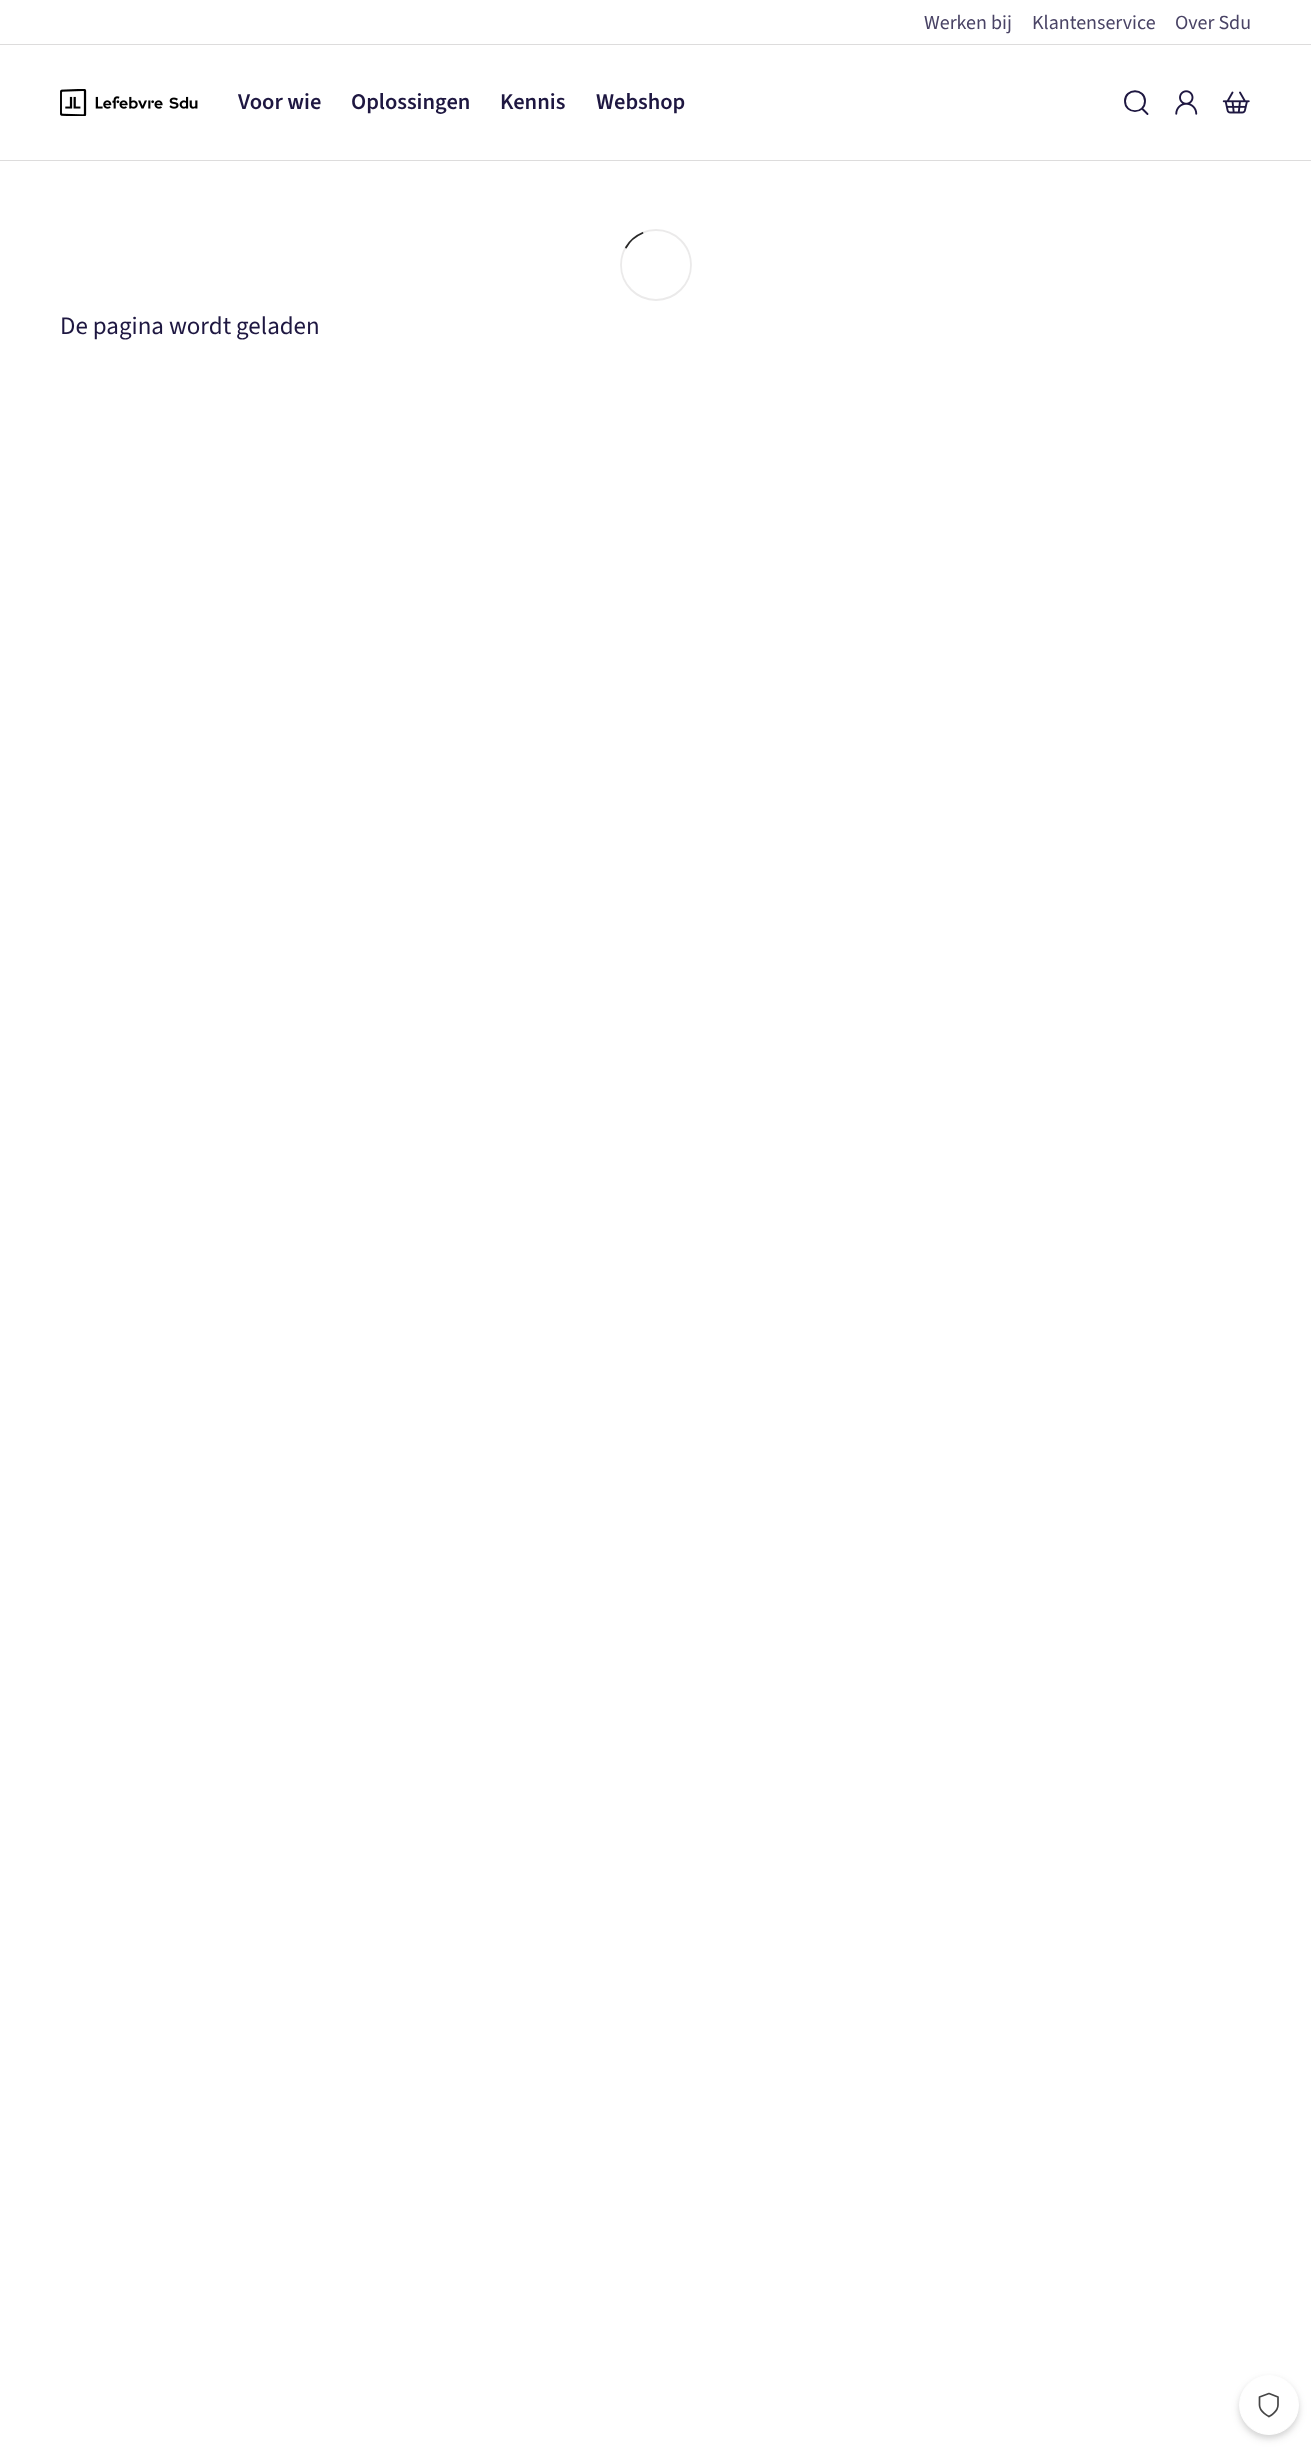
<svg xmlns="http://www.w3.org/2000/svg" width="1311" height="2447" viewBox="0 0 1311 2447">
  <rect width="100%" height="100%" fill="#fff"/>
  <path d="M0 44h1311v1H0z" fill="#dddcdc"/>
  <path d="M0 160h1311v1H0z" fill="#dddcdc"/>
  <image x="60" y="89" width="138" height="27" href="img/1.png"/>
  <path d="M1147.5 114L1142 108.5M1145 101C1145 114.5 1125 114.5 1125 101C1125 88 1145 88 1145 101" fill="none" stroke="#1e1741" stroke-width="1.9" stroke-linecap="round" stroke-linejoin="round"/>
  <image x="1175" y="90" width="23" height="25" href="img/2.png"/>
  <image x="1222" y="91" width="28" height="23" href="img/3.png"/>
  <circle cx="656" cy="265" r="35" fill="none" stroke="#ebeaea" stroke-width="1.8"/>
  <path d="M626 247.5C629.5 241 635.5 236 642.5 233" fill="none" stroke="#262626" stroke-width="1.8" stroke-linecap="round"/>
  <rect x="1239" y="2378" width="60" height="60" rx="30" fill="#00000014" filter="blur(2.5px)"/>
  <rect x="1239" y="2379" width="60" height="60" rx="30" fill="#0000001a" filter="blur(4px)"/>
  <circle cx="1269" cy="2405" r="29.5" fill="#fff" stroke="#fff"/>
  <path d="M1269 2416.5C1269 2416.5 1278 2412 1278 2405V2397L1269 2393.5L1259.5 2397V2405C1259.5 2412 1269 2416.5 1269 2416.5" fill="none" stroke="#464646" stroke-width="1.7" stroke-linecap="round" stroke-linejoin="round"/>
  <g font-family="'Source Sans 3'" font-size="20" fill="#494365">
    <text x="924" y="29">Werken bij</text>
    <text x="1032" y="29">Klantenservice</text>
    <text x="1175" y="29">Over Sdu</text>
  </g>
  <g font-family="'Source Sans 3'" font-size="22.5" font-weight="600" fill="#1e1741">
    <text x="238" y="109">Voor wie</text>
    <text x="351" y="109">Oplossingen</text>
    <text x="500" y="109">Kennis</text>
    <text x="596" y="109">Webshop</text>
  </g>
  <text x="60" y="334" font-family="'Source Sans 3'" font-size="25" fill="#1e1741">De pagina wordt geladen</text>
</svg>
